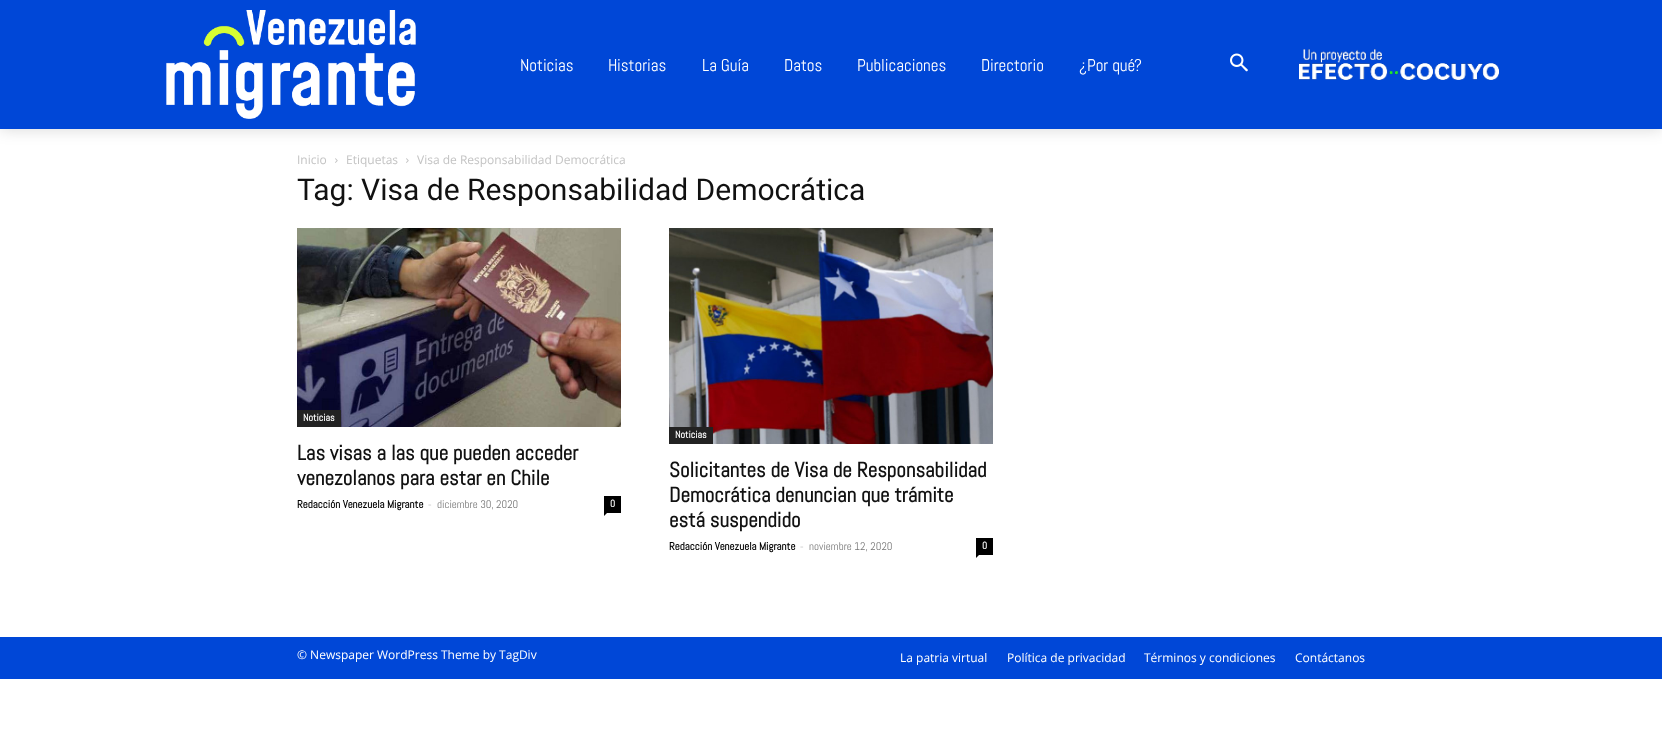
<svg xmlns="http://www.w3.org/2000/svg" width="1662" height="747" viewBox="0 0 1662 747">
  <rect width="100%" height="100%" fill="#fff"/>
  <path d="M0 0h1662v129H0z" fill="#00000029" filter="blur(8px)"/>
  <path d="M0 0h1662v129H0z" fill="#0047d7"/>
  <image x="166" y="10" width="250" height="109" href="img/1.png"/>
  <image x="1230" y="53" width="18" height="19" href="img/2.png"/>
  <image x="1299" y="49" width="200" height="31" href="img/3.png"/>
  <image x="335" y="158" width="3" height="5" href="img/4.png"/>
  <image x="406" y="158" width="3" height="5" href="img/4.png"/>
  <image x="297" y="228" width="324" height="199" href="img/5.png"/>
  <path d="M297 410h44v17H297z" fill="#222"/>
  <path d="M604 496h17v17H604z" fill="#000"/>
  <path d="M604 513H607L604 516Z" fill="#000"/>
  <image x="669" y="228" width="324" height="216" href="img/6.png"/>
  <path d="M669 427h44v17H669z" fill="#222"/>
  <path d="M976 538h17v17H976z" fill="#000"/>
  <path d="M976 555H979L976 558Z" fill="#000"/>
  <path d="M0 637h1662v42H0z" fill="#0047d7"/>
  <g font-family="Abel" font-size="17" fill="#fff">
    <text x="520" y="71">Noticias</text>
    <text x="608" y="71">Historias</text>
    <text x="702" y="71">La Guía</text>
    <text x="784" y="71">Datos</text>
    <text x="857" y="71">Publicaciones</text>
    <text x="981" y="71">Directorio</text>
    <text x="1079" y="71">¿Por qué?</text>
  </g>
  <g font-family="Open Sans" font-size="12" fill="#c3c3c3">
    <text x="297" y="164">Inicio</text>
    <text x="346" y="164">Etiquetas</text>
    <text x="417" y="164">Visa de Responsabilidad Democrática</text>
  </g>
  <text x="297" y="200" font-family="Roboto" font-size="30" fill="#111">Tag: Visa de Responsabilidad Democrática</text>
  <text x="303" y="421" font-family="Abel" font-size="10" font-weight="bold" fill="#fff">Noticias</text>
  <g font-family="Abel" font-size="21" font-weight="bold" fill="#111">
    <text x="297" y="460">Las visas a las que pueden acceder</text>
    <text x="297" y="485">venezolanos para estar en Chile</text>
  </g>
  <text x="297" y="508" font-family="Abel" font-size="11" font-weight="bold" fill="#000">Redacción Venezuela Migrante</text>
  <text x="428" y="508" font-family="Open Sans" font-size="11" fill="#ccc">-</text>
  <text x="437" y="508" font-family="Abel" font-size="11" fill="#767676">diciembre 30, 2020</text>
  <g font-family="Abel" font-size="10" font-weight="bold" fill="#fff">
    <text x="610" y="507">0</text>
    <text x="675" y="438">Noticias</text>
  </g>
  <g font-family="Abel" font-size="21" font-weight="bold" fill="#111">
    <text x="669" y="477">Solicitantes de Visa de Responsabilidad</text>
    <text x="669" y="502">Democrática denuncian que trámite</text>
    <text x="669" y="527">está suspendido</text>
  </g>
  <text x="669" y="550" font-family="Abel" font-size="11" font-weight="bold" fill="#000">Redacción Venezuela Migrante</text>
  <text x="800" y="550" font-family="Open Sans" font-size="11" fill="#ccc">-</text>
  <text x="809" y="550" font-family="Abel" font-size="11" fill="#767676">noviembre 12, 2020</text>
  <text x="982" y="549" font-family="Abel" font-size="10" font-weight="bold" fill="#fff">0</text>
  <g font-family="Open Sans" font-size="12" fill="#fff">
    <text x="297" y="659">© Newspaper WordPress Theme by TagDiv</text>
    <text x="900" y="662">La patria virtual</text>
    <text x="1007" y="662">Política de privacidad</text>
    <text x="1144" y="662">Términos y condiciones</text>
    <text x="1295" y="662">Contáctanos</text>
  </g>
</svg>
